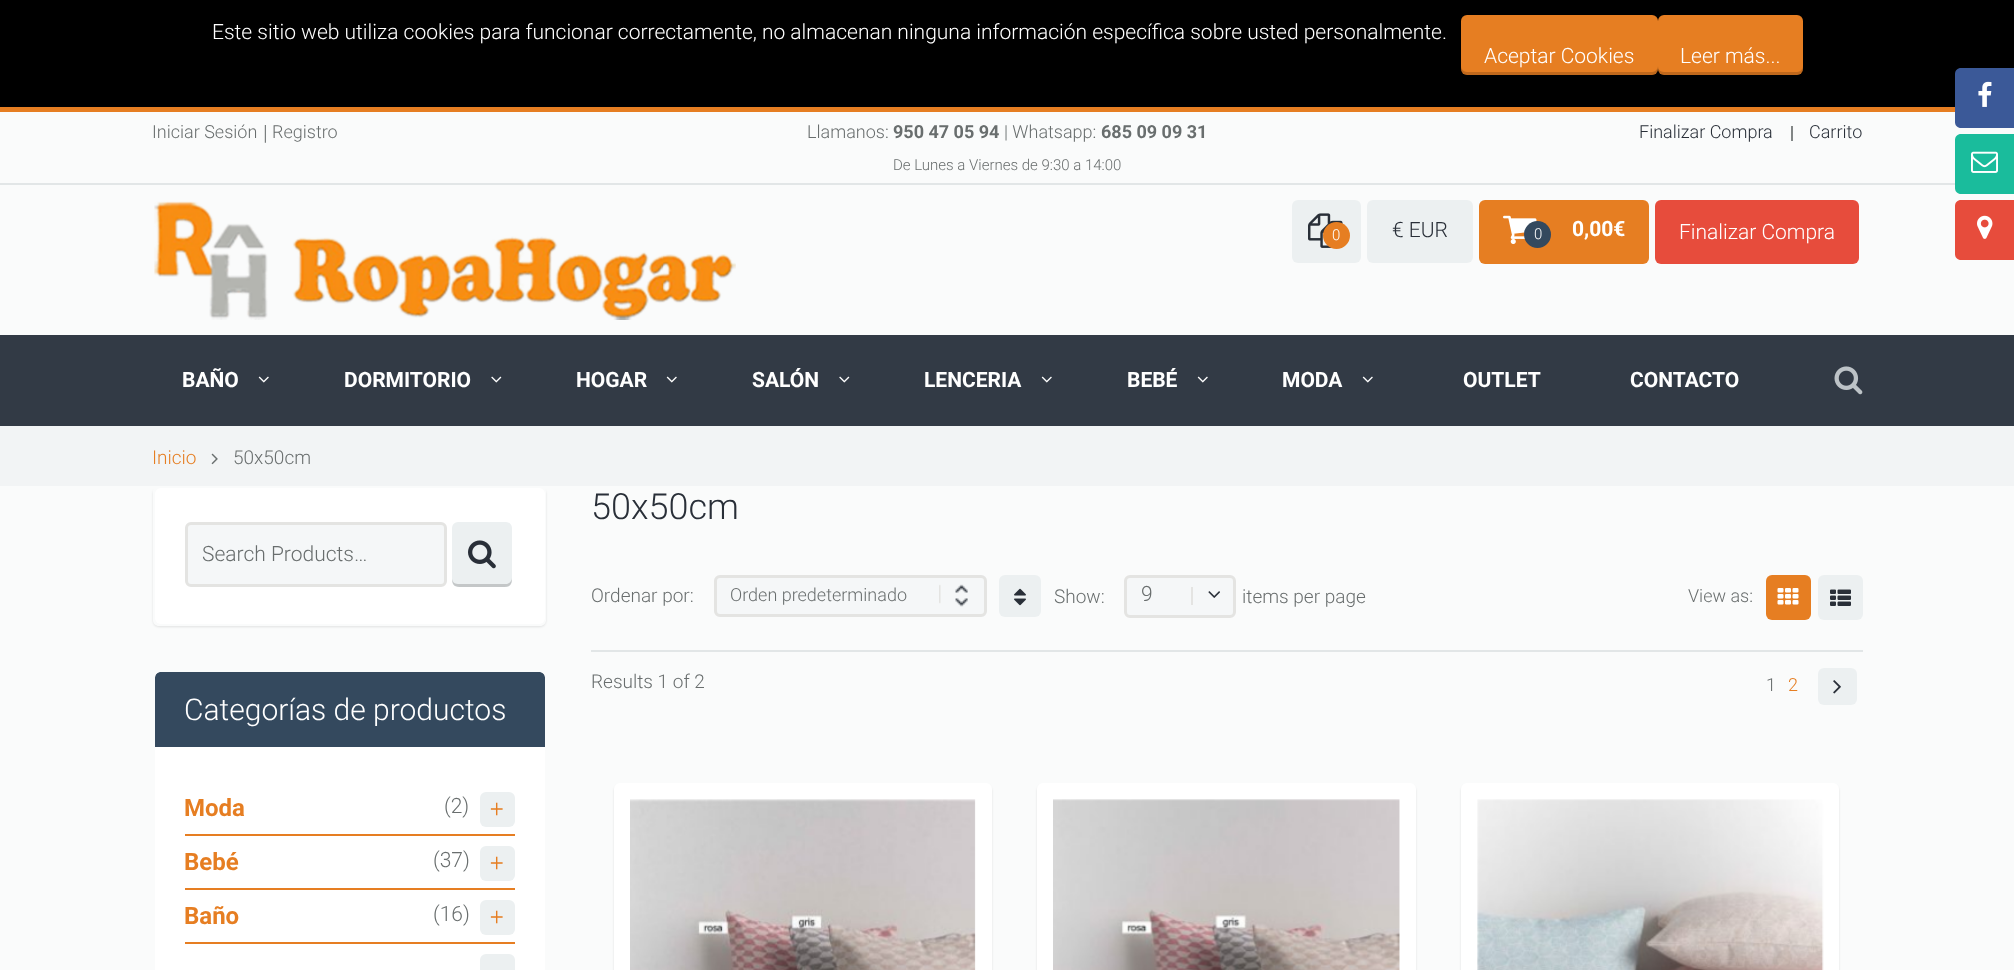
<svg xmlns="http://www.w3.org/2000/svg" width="2014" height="970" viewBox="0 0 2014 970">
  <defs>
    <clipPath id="clip1"><path d="M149 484H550V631H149ZM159 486H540C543.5 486 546 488.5 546 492V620C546 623.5 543.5 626 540 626H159C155.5 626 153 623.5 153 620V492C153 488.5 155.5 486 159 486Z" clip-rule="evenodd"/></clipPath>
    <clipPath id="clip2"><rect x="155" y="672" width="390" height="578" rx="5"/></clipPath>
    <clipPath id="clip3"><path d="M731 581h240v31H731z"/></clipPath>
  </defs>
  <rect width="100%" height="100%" fill="#fafbfb"/>
  <path d="M0 0h2014v107H0z" fill="#000"/>
  <rect x="1461" y="15" width="197" height="60" rx="6" fill="#e67e22"/>
  <path d="M1461 66V69C1461 72 1464 75 1467 75H1652C1655 75 1658 72 1658 69V66C1658 69 1655 72 1652 72H1467C1464 72 1461 69 1461 66Z" fill="#0000002b"/>
  <rect x="1658" y="15" width="145" height="60" rx="6" fill="#e67e22"/>
  <path d="M1658 66V69C1658 72 1661 75 1664 75H1797C1800 75 1803 72 1803 69V66C1803 69 1800 72 1797 72H1664C1660 72 1658 69 1658 66Z" fill="#0000002b"/>
  <path d="M0 107h1955v5H0z" fill="#e67e22"/>
  <path d="M0 183h1955v2H0z" fill="#e2e6e7"/>
  <path d="M1791 126h2v15H1791z" fill="#828686"/>
  <image x="154" y="201" width="582" height="119" href="img/1.png"/>
  <rect x="1292" y="200" width="69" height="63" rx="6" fill="#ecf0f1"/>
  <image x="1308" y="213" width="35" height="35" href="img/2.png"/>
  <circle cx="1336.5" cy="235.5" r="13.5" fill="#e67e22"/>
  <rect x="1367" y="200" width="106" height="63" rx="6" fill="#ecf0f1"/>
  <rect x="1479" y="200" width="170" height="64" rx="6" fill="#e67e22"/>
  <image x="1503" y="215" width="34" height="30" href="img/3.png"/>
  <circle cx="1537.5" cy="234.5" r="13.5" fill="#34495e"/>
  <rect x="1655" y="200" width="204" height="64" rx="6" fill="#e74c3c"/>
  <path d="M0 335h2014v91H0z" fill="#323a45"/>
  <image x="258" y="376" width="11" height="7" href="img/4.png"/>
  <image x="491" y="376" width="11" height="7" href="img/5.png"/>
  <image x="666" y="376" width="11" height="7" href="img/4.png"/>
  <image x="839" y="376" width="11" height="7" href="img/5.png"/>
  <image x="1041" y="376" width="11" height="7" href="img/4.png"/>
  <image x="1197" y="376" width="11" height="7" href="img/4.png"/>
  <image x="1362" y="376" width="11" height="7" href="img/4.png"/>
  <image x="1834" y="366" width="29" height="29" href="img/6.png"/>
  <g clip-path="url(#clip1)">
    <rect x="153" y="488" width="393" height="139" rx="6" fill="#0000001a" filter="blur(1px)"/>
  </g>
  <path d="M0 426h2014v60H0z" fill="#f2f4f5"/>
  <image x="211" y="453" width="7" height="12" href="img/7.png"/>
  <rect x="155" y="488" width="390" height="136" rx="6" fill="#fff"/>
  <rect x="186.5" y="523.5" width="259" height="62" rx="4.5" fill="#f5f7f8" stroke="#e4e4e2" stroke-width="3"/>
  <rect x="452" y="522" width="60" height="65" rx="6" fill="#ecf0f1"/>
  <path d="M452 578C452 588 457 587 466 587H498C507 587 512 588 512 578C512 581 509 584 506 584H458C454 584 452 581 452 578Z" fill="#0000002b"/>
  <image x="468" y="540" width="28" height="29" href="img/8.png"/>
  <g clip-path="url(#clip2)">
    <path d="M161 672H539C542.5 672 545 674.5 545 678V747H155V678C155 674.5 157.5 672 161 672Z" fill="#34495e"/>
  </g>
  <path d="M155 747h390v223H155z" fill="#fff"/>
  <path d="M185 834h330v2H185z" fill="#e67e22"/>
  <rect x="480" y="792" width="35" height="35" rx="6" fill="#ecf0f1"/>
  <path d="M185 888h330v2H185z" fill="#e67e22"/>
  <rect x="480" y="846" width="35" height="35" rx="6" fill="#ecf0f1"/>
  <path d="M185 942h330v2H185z" fill="#e67e22"/>
  <rect x="480" y="900" width="35" height="35" rx="6" fill="#ecf0f1"/>
  <rect x="480" y="954" width="35" height="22" rx="6" fill="#ecf0f1"/>
  <rect x="714" y="575" width="273" height="42" rx="6" fill="#f5f7f8"/>
  <image x="939" y="584" width="29" height="23" href="img/9.png"/>
  <rect x="715.5" y="576.5" width="270" height="39" rx="4.5" fill="none" stroke="#e4e4e2" stroke-width="3"/>
  <rect x="999" y="575" width="42" height="42" rx="6" fill="#ecf0f1"/>
  <image x="1014" y="588" width="12" height="18" href="img/10.png"/>
  <rect x="1125.5" y="576.5" width="109" height="40" rx="4.5" fill="#f5f7f8" stroke="#e4e4e2" stroke-width="3"/>
  <path d="M1191 587h2v18H1191z" fill="#e4e4e2"/>
  <image x="1208" y="591" width="12" height="7" href="img/11.png"/>
  <rect x="1766" y="575" width="45" height="45" rx="6" fill="#e67e22"/>
  <image x="1777" y="588" width="22" height="17" href="img/12.png"/>
  <rect x="1818" y="575" width="45" height="45" rx="6" fill="#ecf0f1"/>
  <image x="1830" y="589" width="21" height="17" href="img/13.png"/>
  <path d="M591 650h1272v2H591z" fill="#e2e6e7"/>
  <rect x="1818" y="668" width="39" height="37" rx="6" fill="#ecf0f1"/>
  <image x="1833" y="680" width="8" height="14" href="img/14.png"/>
  <rect x="614" y="785" width="378" height="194" rx="6" fill="#0000001a" filter="blur(1px)"/>
  <rect x="614" y="783" width="378" height="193" rx="6" fill="#fff"/>
  <image x="630" y="799" width="346" height="171" href="img/15.png"/>
  <rect x="1037" y="785" width="379" height="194" rx="6" fill="#0000001a" filter="blur(1px)"/>
  <rect x="1037" y="783" width="379" height="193" rx="6" fill="#fff"/>
  <image x="1053" y="799" width="347" height="171" href="img/16.png"/>
  <rect x="1461" y="785" width="378" height="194" rx="6" fill="#0000001a" filter="blur(1px)"/>
  <rect x="1461" y="783" width="378" height="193" rx="6" fill="#fff"/>
  <image x="1477" y="799" width="347" height="171" href="img/17.png"/>
  <path d="M1961 68H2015V128H1961C1957.5 128 1955 125.5 1955 122V74C1955 70.5 1957.5 68 1961 68Z" fill="#3b5998"/>
  <image x="1978" y="81" width="14" height="26" href="img/18.png"/>
  <path d="M1961 134H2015V194H1961C1957.5 194 1955 191.5 1955 188V140C1955 136.5 1957.5 134 1961 134Z" fill="#1abc9c"/>
  <image x="1971" y="151" width="27" height="22" href="img/19.png"/>
  <path d="M1961 200H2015V260H1961C1957.5 260 1955 257.5 1955 254V206C1955 202.5 1957.5 200 1961 200Z" fill="#e74c3c"/>
  <image x="1977" y="215" width="16" height="24" href="img/20.png"/>
  <g font-family="Roboto" font-size="21" font-weight="300" fill="#fff">
    <text x="212" y="39">Este sitio web utiliza cookies para funcionar correctamente, no almacenan ninguna información específica sobre usted personalmente.</text>
    <text x="1484" y="63">Aceptar Cookies</text>
    <text x="1680" y="63">Leer más...</text>
  </g>
  <text x="152" y="138" font-family="Roboto" font-size="18" font-weight="300" fill="#696e6e">Iniciar Sesión</text>
  <text x="263" y="140" font-family="Roboto" font-size="21" font-weight="300" fill="#696e6e">|</text>
  <g font-family="Roboto" font-size="18" font-weight="300" fill="#696e6e">
    <text x="272" y="138">Registro</text>
    <text x="807" y="138">Llamanos:</text>
  </g>
  <text x="893" y="138" font-family="Roboto" font-size="18" font-weight="bold" fill="#696e6e">950 47 05 94</text>
  <text x="1004" y="138" font-family="Roboto" font-size="18" font-weight="300" fill="#696e6e">| Whatsapp:</text>
  <text x="1101" y="138" font-family="Roboto" font-size="18" font-weight="bold" fill="#696e6e">685 09 09 31</text>
  <text x="893" y="170" font-family="Roboto" font-size="15" font-weight="300" fill="#696e6e">De Lunes a Viernes de 9:30 a 14:00</text>
  <g font-family="Roboto" font-size="18" font-weight="300" fill="#292f38">
    <text x="1639" y="138">Finalizar Compra</text>
    <text x="1809" y="138">Carrito</text>
  </g>
  <text x="1332" y="240" font-family="Roboto" font-size="15" font-weight="300" fill="#fff">0</text>
  <text x="1392" y="237" font-family="Roboto" font-size="21" font-weight="300" fill="#292f38">€ EUR</text>
  <text x="1534" y="239" font-family="Roboto" font-size="15" font-weight="300" fill="#fff">0</text>
  <text x="1572" y="236" font-family="Roboto" font-size="21" font-weight="bold" fill="#fff">0,00€</text>
  <text x="1679" y="239" font-family="Roboto" font-size="21" font-weight="300" fill="#fff">Finalizar Compra</text>
  <g font-family="Roboto" font-size="21" font-weight="bold" fill="#fff">
    <text x="182" y="387">BAÑO</text>
    <text x="344" y="387">DORMITORIO</text>
    <text x="576" y="387">HOGAR</text>
    <text x="752" y="387">SALÓN</text>
    <text x="924" y="387">LENCERIA</text>
    <text x="1127" y="387">BEBÉ</text>
    <text x="1282" y="387">MODA</text>
    <text x="1463" y="387">OUTLET</text>
    <text x="1630" y="387">CONTACTO</text>
  </g>
  <text x="152" y="464" font-family="Roboto" font-size="19" font-weight="300" fill="#e67e22">Inicio</text>
  <text x="233" y="464" font-family="Roboto" font-size="19" font-weight="300" fill="#696e6e">50x50cm</text>
  <text x="202" y="561" font-family="Roboto" font-size="21" font-weight="300" fill="#696e6e">Search Products…</text>
  <text x="184" y="720" font-family="Roboto" font-size="30" font-weight="300" fill="#fff">Categorías de productos</text>
  <text x="444" y="813" font-family="Roboto" font-size="21" font-weight="300" fill="#696e6e">(2)</text>
  <text x="184" y="816" font-family="Roboto" font-size="24" font-weight="bold" fill="#e67e22">Moda</text>
  <text x="490" y="817" font-family="Roboto" font-size="24" font-weight="300" fill="#e67e22">+</text>
  <text x="433" y="867" font-family="Roboto" font-size="21" font-weight="300" fill="#696e6e">(37)</text>
  <text x="184" y="870" font-family="Roboto" font-size="24" font-weight="bold" fill="#e67e22">Bebé</text>
  <text x="490" y="871" font-family="Roboto" font-size="24" font-weight="300" fill="#e67e22">+</text>
  <text x="433" y="921" font-family="Roboto" font-size="21" font-weight="300" fill="#696e6e">(16)</text>
  <text x="184" y="924" font-family="Roboto" font-size="24" font-weight="bold" fill="#e67e22">Baño</text>
  <text x="490" y="925" font-family="Roboto" font-size="24" font-weight="300" fill="#e67e22">+</text>
  <text x="591" y="519" font-family="Roboto" font-size="36" font-weight="300" fill="#292f38">50x50cm</text>
  <text x="591" y="602" font-family="Roboto" font-size="19" font-weight="300" fill="#696e6e">Ordenar por:</text>
  <g clip-path="url(#clip3)">
    <text x="730" y="601" font-family="Roboto" font-size="18" font-weight="300" fill="#696e6e">Orden predeterminado</text>
  </g>
  <text x="1054" y="603" font-family="Roboto" font-size="19" font-weight="300" fill="#696e6e">Show:</text>
  <text x="1141" y="601" font-family="Roboto" font-size="21" font-weight="300" fill="#696e6e">9</text>
  <text x="1242" y="603" font-family="Roboto" font-size="19" font-weight="300" fill="#696e6e">items per page</text>
  <text x="1688" y="602" font-family="Roboto" font-size="18" font-weight="300" fill="#696e6e">View as:</text>
  <text x="591" y="688" font-family="Roboto" font-size="19" font-weight="300" fill="#696e6e">Results 1 of 2</text>
  <text x="1766" y="691" font-family="Roboto" font-size="18" font-weight="300" fill="#696e6e">1</text>
  <text x="1788" y="691" font-family="Roboto" font-size="18" font-weight="300" fill="#e67e22">2</text>
</svg>
